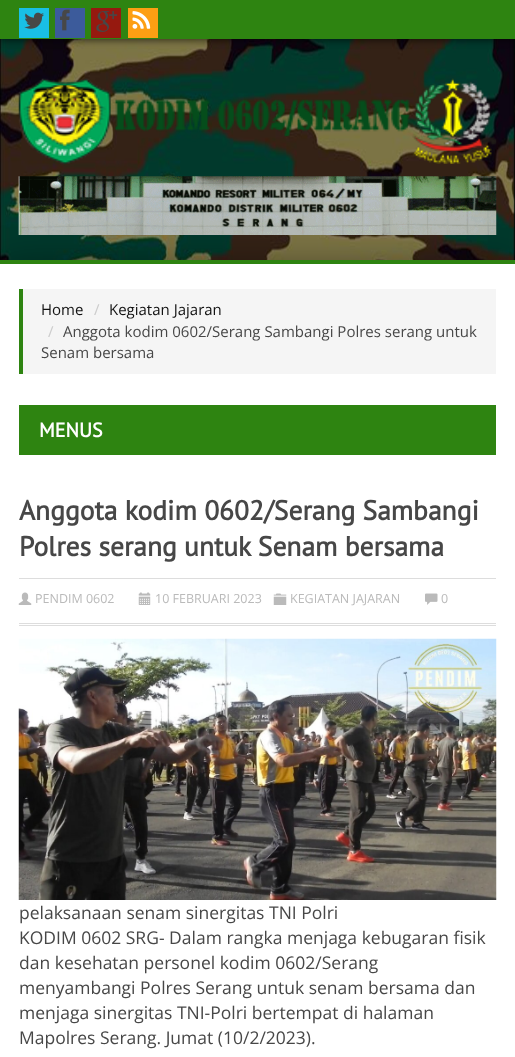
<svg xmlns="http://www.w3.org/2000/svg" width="515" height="1057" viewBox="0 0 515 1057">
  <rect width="100%" height="100%" fill="#fff"/>
  <image x="0" y="39" width="515" height="221" href="img/1.png"/>
  <path d="M0 3h515v38H0z" fill="#00000080" filter="blur(3px)"/>
  <path d="M0 0h515v39H0z" fill="#2e8411"/>
  <path d="M19 8h30v30H19z" fill="#19bfe5"/>
  <image x="24" y="12" width="20" height="17" href="img/2.png"/>
  <path d="M55 8h30v30H55z" fill="#3c5b9b"/>
  <image x="60" y="9" width="10" height="22" href="img/3.png"/>
  <path d="M91 8h30v30H91z" fill="#96190f"/>
  <image x="96" y="11" width="22" height="21" href="img/4.png"/>
  <path d="M128 8h30v30H128z" fill="#fd9f13"/>
  <image x="132" y="11" width="19" height="18" href="img/5.png"/>
  <image x="18" y="78" width="479" height="86" href="img/6.png"/>
  <path d="M0 266h515v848H0z" fill="#00000066" filter="blur(19px)"/>
  <image x="18" y="176" width="479" height="59" href="img/7.png"/>
  <path d="M0 260h515v4H0z" fill="#2e8411"/>
  <path d="M0 264h515v793H0z" fill="#fff"/>
  <path d="M23 289h473v85H23z" fill="#f5f5f5"/>
  <path d="M19 289h4v85H19z" fill="#2e8411"/>
  <path d="M19 405h477v50H19z" fill="#2e8411"/>
  <path d="M19 578h477v1H19z" fill="#ddd"/>
  <path d="M19 623h477v1H19z" fill="#ddd"/>
  <path d="M19 625h477v1H19z" fill="#ddd"/>
  <image x="18" y="592" width="14" height="13" href="img/8.png"/>
  <image x="138" y="592" width="13" height="13" href="img/9.png"/>
  <image x="273" y="593" width="14" height="12" href="img/10.png"/>
  <image x="425" y="593" width="13" height="12" href="img/11.png"/>
  <image x="18" y="638" width="479" height="262" href="img/12.png"/>
  <text x="41" y="315" font-family="Open Sans" font-size="15" fill="#121212">Home</text>
  <text x="94" y="315" font-family="Open Sans" font-size="15" fill="#ccc">/</text>
  <text x="109" y="315" font-family="Open Sans" font-size="15" fill="#121212">Kegiatan Jajaran</text>
  <text x="48" y="337" font-family="Open Sans" font-size="15" fill="#ccc">/</text>
  <g font-family="Open Sans" font-size="15" fill="#474747">
    <text x="63" y="337">Anggota kodim 0602/Serang Sambangi Polres serang untuk</text>
    <text x="41" y="358">Senam bersama</text>
  </g>
  <text x="39" y="437" font-family="PT Sans" font-size="20" font-weight="bold" fill="#fff">MENUS</text>
  <g font-family="PT Sans" font-size="27.5" font-weight="bold" fill="#474747">
    <text x="19" y="520">Anggota kodim 0602/Serang Sambangi</text>
    <text x="19" y="556">Polres serang untuk Senam bersama</text>
  </g>
  <g font-family="Open Sans" font-size="12.5" fill="#bababa">
    <text x="35" y="603">PENDIM 0602</text>
    <text x="155" y="603">10 FEBRUARI 2023</text>
    <text x="290" y="603">KEGIATAN JAJARAN</text>
    <text x="441" y="603">0</text>
  </g>
  <g font-family="Open Sans" font-size="17.5" fill="#474747">
    <text x="19" y="919">pelaksanaan senam sinergitas TNI Polri</text>
    <text x="19" y="944">KODIM 0602 SRG- Dalam rangka menjaga kebugaran fisik</text>
    <text x="19" y="969">dan kesehatan personel kodim 0602/Serang</text>
    <text x="19" y="994">menyambangi Polres Serang untuk senam bersama dan</text>
    <text x="19" y="1019">menjaga sinergitas TNI-Polri bertempat di halaman</text>
    <text x="19" y="1044">Mapolres Serang. Jumat (10/2/2023).</text>
  </g>
</svg>
